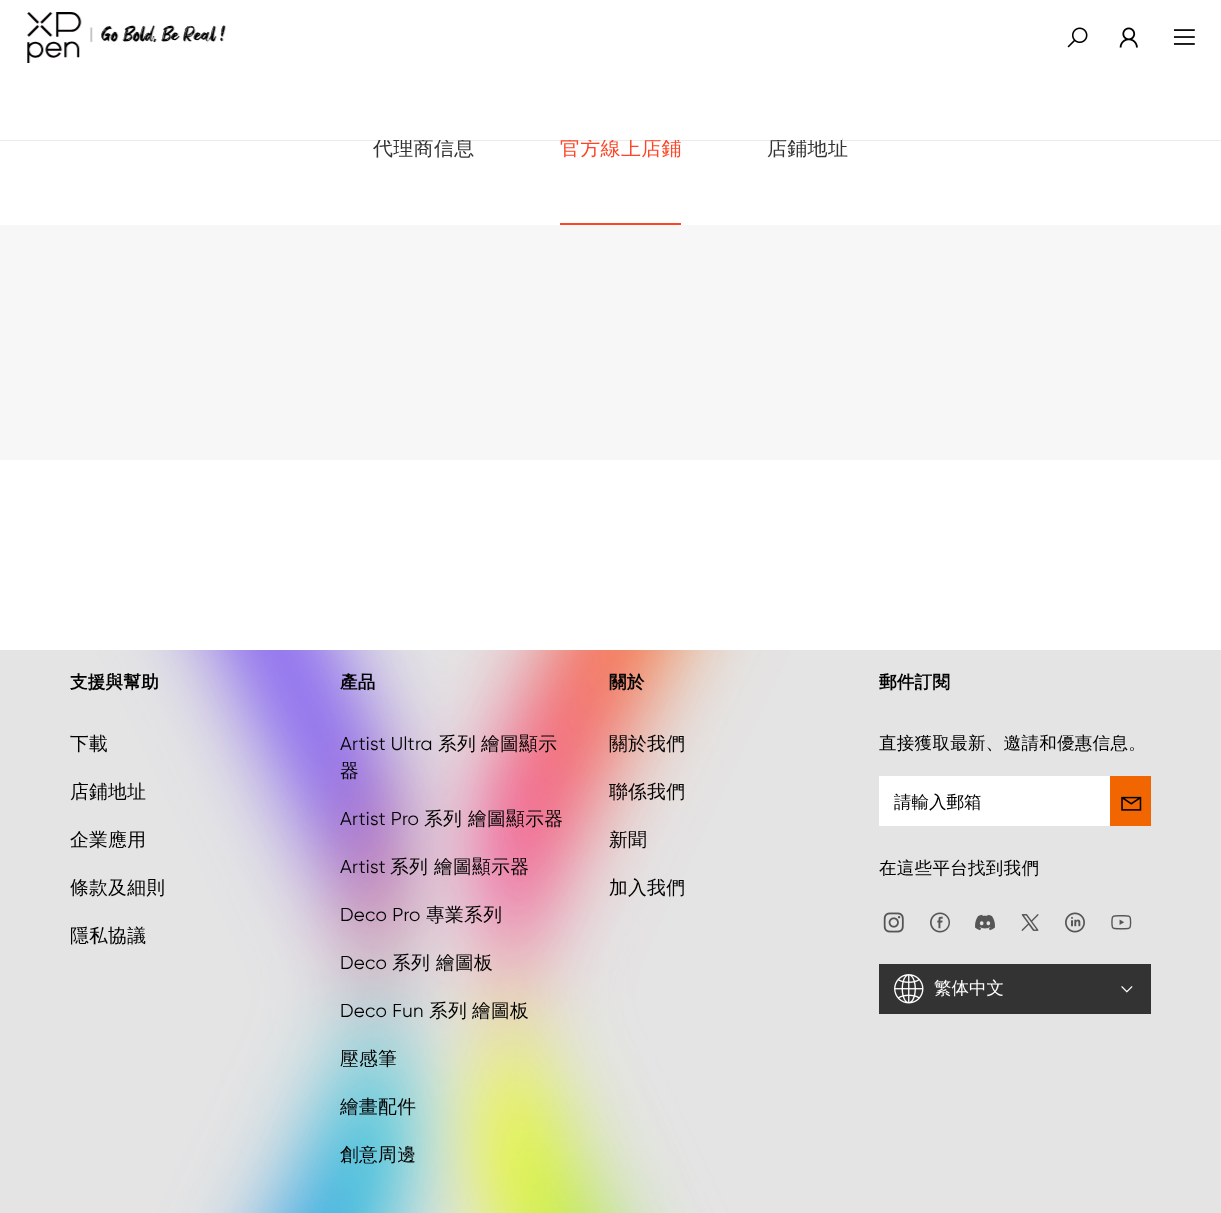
<svg xmlns="http://www.w3.org/2000/svg" width="1221" height="1213" viewBox="0 0 1221 1213">
  <rect width="100%" height="100%" fill="#fff"/>
  <path d="M0 140h1221v1H0z" fill="#00000014"/>
  <image x="27" y="12" width="199" height="51" href="img/1.png"/>
  <image x="1067" y="27" width="21" height="21" href="img/2.png"/>
  <image x="1119" y="27" width="19" height="21" href="img/3.png"/>
  <image x="1173" y="29" width="22" height="16" href="img/4.png"/>
  <path d="M560 223h121v2H560z" fill="#fd4627"/>
  <path d="M0 225h1221v235H0z" fill="#f7f7f7"/>
  <image x="0" y="650" width="1221" height="563" href="img/5.png"/>
  <path d="M879 776h231v50H879z" fill="#fff"/>
  <path d="M1110 776h41v50H1110z" fill="#f16600"/>
  <image x="1121" y="796" width="21" height="15" href="img/6.png"/>
  <image x="883" y="912" width="21" height="21" href="img/7.png"/>
  <image x="930" y="912" width="20" height="21" href="img/8.png"/>
  <image x="975" y="914" width="20" height="17" href="img/9.png"/>
  <image x="1021" y="914" width="18" height="17" href="img/10.png"/>
  <image x="1065" y="912" width="20" height="21" href="img/11.png"/>
  <image x="1111" y="915" width="21" height="15" href="img/12.png"/>
  <path d="M879 964h272v50H879z" fill="#333"/>
  <image x="894" y="974" width="30" height="30" href="img/13.png"/>
  <image x="1121" y="986" width="12" height="7" href="img/14.png"/>
  <text x="373" y="155" font-family="WenQuanYi Zen Hei" font-size="20" font-weight="500" letter-spacing="0.3" fill="#333">代理商信息</text>
  <text x="560" y="155" font-family="WenQuanYi Zen Hei" font-size="20" font-weight="500" letter-spacing="0.3" fill="#fd4627">官方線上店鋪</text>
  <text x="767" y="155" font-family="WenQuanYi Zen Hei" font-size="20" font-weight="500" letter-spacing="0.3" fill="#333">店鋪地址</text>
  <path d="M378 138h464v2H378z" fill="#fff"/>
  <text x="70" y="688" font-family="WenQuanYi Zen Hei" font-size="17.5" font-weight="bold" letter-spacing="0.3" fill="#010101">支援與幫助</text>
  <g font-family="WenQuanYi Zen Hei" font-size="18.75" font-weight="500" letter-spacing="0.3" fill="#010101">
    <text x="70" y="750">下載</text>
    <text x="70" y="798">店鋪地址</text>
    <text x="70" y="846">企業應用</text>
    <text x="70" y="894">條款及細則</text>
    <text x="70" y="942">隱私協議</text>
  </g>
  <text x="340" y="688" font-family="WenQuanYi Zen Hei" font-size="17.5" font-weight="bold" letter-spacing="0.3" fill="#010101">產品</text>
  <text x="340" y="750" font-family="Gilroy" font-size="18.75" letter-spacing="0.3" fill="#010101">Artist Ultra</text>
  <g font-family="WenQuanYi Zen Hei" font-size="18.75" font-weight="500" letter-spacing="0.3" fill="#010101">
    <text x="438" y="750">系列</text>
    <text x="481" y="750">繪圖顯示</text>
    <text x="340" y="777">器</text>
  </g>
  <text x="340" y="825" font-family="Gilroy" font-size="18.75" letter-spacing="0.3" fill="#010101">Artist Pro</text>
  <g font-family="WenQuanYi Zen Hei" font-size="18.75" font-weight="500" letter-spacing="0.3" fill="#010101">
    <text x="424" y="825">系列</text>
    <text x="468" y="825">繪圖顯示器</text>
  </g>
  <text x="340" y="873" font-family="Gilroy" font-size="18.75" letter-spacing="0.3" fill="#010101">Artist</text>
  <text x="390" y="873" font-family="WenQuanYi Zen Hei" font-size="18.75" font-weight="500" letter-spacing="0.3" fill="#010101">系列 繪圖顯示器</text>
  <text x="340" y="921" font-family="Gilroy" font-size="18.75" letter-spacing="0.3" fill="#010101">Deco Pro</text>
  <text x="426" y="921" font-family="WenQuanYi Zen Hei" font-size="18.75" font-weight="500" letter-spacing="0.3" fill="#010101">專業系列</text>
  <text x="340" y="969" font-family="Gilroy" font-size="18.75" letter-spacing="0.3" fill="#010101">Deco</text>
  <text x="392" y="969" font-family="WenQuanYi Zen Hei" font-size="18.75" font-weight="500" letter-spacing="0.3" fill="#010101">系列 繪圖板</text>
  <text x="340" y="1017" font-family="Gilroy" font-size="18.75" letter-spacing="0.3" fill="#010101">Deco Fun</text>
  <g font-family="WenQuanYi Zen Hei" font-size="18.75" font-weight="500" letter-spacing="0.3" fill="#010101">
    <text x="429" y="1017">系列</text>
    <text x="472" y="1017">繪圖板</text>
    <text x="340" y="1065">壓感筆</text>
    <text x="340" y="1113">繪畫配件</text>
    <text x="340" y="1161">創意周邊</text>
  </g>
  <text x="609" y="688" font-family="WenQuanYi Zen Hei" font-size="17.5" font-weight="bold" letter-spacing="0.3" fill="#010101">關於</text>
  <g font-family="WenQuanYi Zen Hei" font-size="18.75" font-weight="500" letter-spacing="0.3" fill="#010101">
    <text x="609" y="750">關於我們</text>
    <text x="609" y="798">聯係我們</text>
    <text x="609" y="846">新聞</text>
    <text x="609" y="894">加入我們</text>
  </g>
  <text x="879" y="688" font-family="WenQuanYi Zen Hei" font-size="17.5" font-weight="bold" letter-spacing="0.3" fill="#010101">郵件訂閱</text>
  <text x="879" y="749" font-family="WenQuanYi Zen Hei" font-size="17.5" font-weight="500" letter-spacing="0.3" fill="#010101">直接獲取最新、邀請和優惠信息。</text>
  <text x="894" y="808" font-family="WenQuanYi Zen Hei" font-size="17.5" font-weight="500" fill="#010101">請輸入郵箱</text>
  <text x="879" y="874" font-family="WenQuanYi Zen Hei" font-size="17.5" font-weight="500" letter-spacing="0.3" fill="#010101">在這些平台找到我們</text>
  <text x="934" y="994" font-family="WenQuanYi Zen Hei" font-size="17.5" font-weight="500" fill="#fff">繁体中文</text>
</svg>
